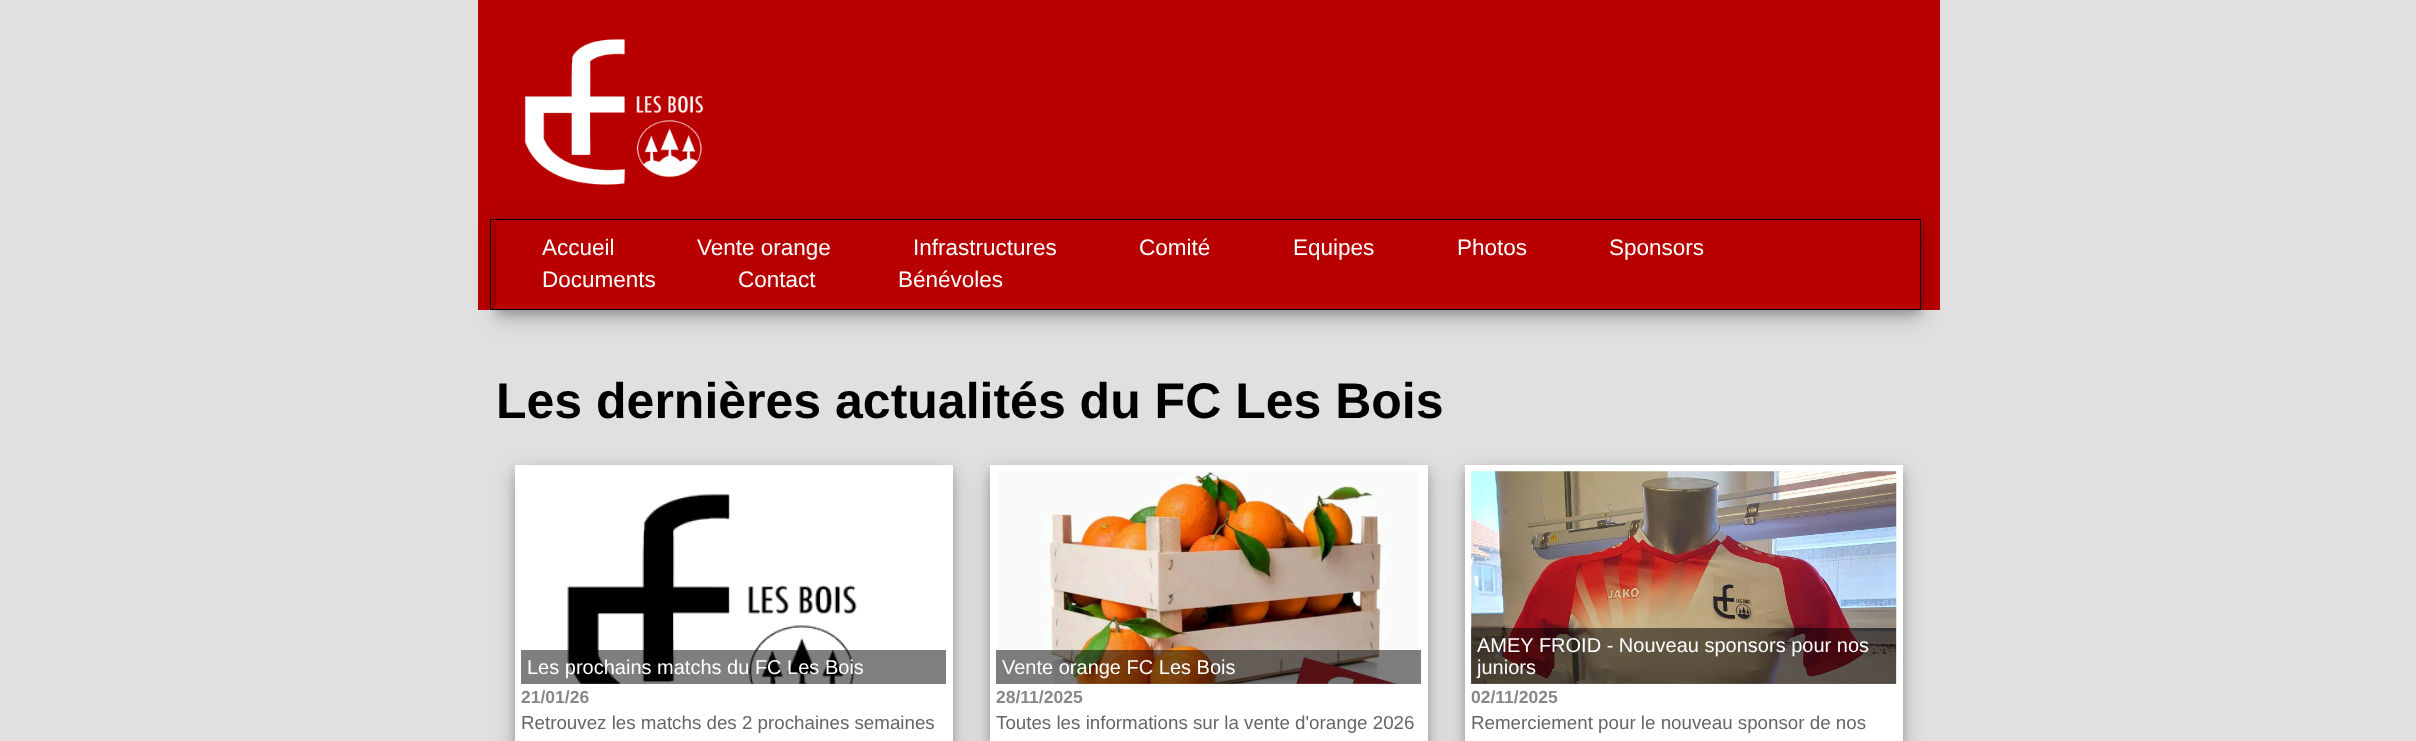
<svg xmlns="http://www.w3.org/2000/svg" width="2416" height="741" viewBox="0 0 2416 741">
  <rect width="100%" height="100%" fill="#e0e0e0"/>
  <path d="M478 0h1462v310H478z" fill="#b80000"/>
  <image x="524" y="39" width="180" height="146" href="img/1.png"/>
  <path d="M496 226h1425v92H496z" fill="#00000030" filter="blur(12.5px)"/>
  <path d="M496 224h1425v91H496z" fill="#00000033" filter="blur(5px)"/>
  <path d="M496 220h1424v89H496z" fill="#b80000"/>
  <path d="M490.5 219.5h1430v90H490.5z" fill="none" stroke="#000"/>
  <path d="M515 473h438v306H515z" fill="#00000030" filter="blur(12.5px)"/>
  <path d="M515 470h438v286H515z" fill="#00000033" filter="blur(5px)"/>
  <path d="M515 465h438v276H515z" fill="#fff"/>
  <image x="567" y="494" width="290" height="190" href="img/2.png"/>
  <path d="M521 650h425v34H521z" fill="#00000080"/>
  <path d="M990 473h438v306H990z" fill="#00000030" filter="blur(12.5px)"/>
  <path d="M990 470h438v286H990z" fill="#00000033" filter="blur(5px)"/>
  <path d="M990 465h438v276H990z" fill="#fff"/>
  <image x="997" y="471" width="422" height="213" href="img/3.png"/>
  <path d="M996 650h425v34H996z" fill="#00000080"/>
  <path d="M1465 473h438v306H1465z" fill="#00000030" filter="blur(12.5px)"/>
  <path d="M1465 470h438v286H1465z" fill="#00000033" filter="blur(5px)"/>
  <path d="M1465 465h438v276H1465z" fill="#fff"/>
  <image x="1471" y="471" width="426" height="213" href="img/4.png"/>
  <path d="M1471 628h425v56H1471z" fill="#00000080"/>
  <g font-family="Liberation Sans" font-size="22.5" fill="#fff">
    <text x="542" y="255">Accueil</text>
    <text x="697" y="255">Vente orange</text>
    <text x="913" y="255">Infrastructures</text>
    <text x="1139" y="255">Comité</text>
    <text x="1293" y="255">Equipes</text>
    <text x="1457" y="255">Photos</text>
    <text x="1609" y="255">Sponsors</text>
    <text x="542" y="287">Documents</text>
    <text x="738" y="287">Contact</text>
    <text x="898" y="287">Bénévoles</text>
  </g>
  <text x="496" y="418" font-family="Liberation Sans" font-size="50" font-weight="bold" fill="#000">Les dernières actualités du FC Les Bois</text>
  <text x="527" y="674" font-family="Liberation Sans" font-size="20" fill="#fff">Les prochains matchs du FC Les Bois</text>
  <text x="521" y="703" font-family="Liberation Sans" font-size="17.5" font-weight="bold" fill="#888">21/01/26</text>
  <text x="521" y="729" font-family="Liberation Sans" font-size="18.75" fill="#666">Retrouvez les matchs des 2 prochaines semaines</text>
  <text x="1002" y="674" font-family="Liberation Sans" font-size="20" fill="#fff">Vente orange FC Les Bois</text>
  <text x="996" y="703" font-family="Liberation Sans" font-size="17.5" font-weight="bold" fill="#888">28/11/2025</text>
  <text x="996" y="729" font-family="Liberation Sans" font-size="18.75" fill="#666">Toutes les informations sur la vente d'orange 2026</text>
  <g font-family="Liberation Sans" font-size="20" fill="#fff">
    <text x="1477" y="652">AMEY FROID - Nouveau sponsors pour nos</text>
    <text x="1477" y="674">juniors</text>
  </g>
  <text x="1471" y="703" font-family="Liberation Sans" font-size="17.5" font-weight="bold" fill="#888">02/11/2025</text>
  <text x="1471" y="729" font-family="Liberation Sans" font-size="18.75" fill="#666">Remerciement pour le nouveau sponsor de nos</text>
</svg>
